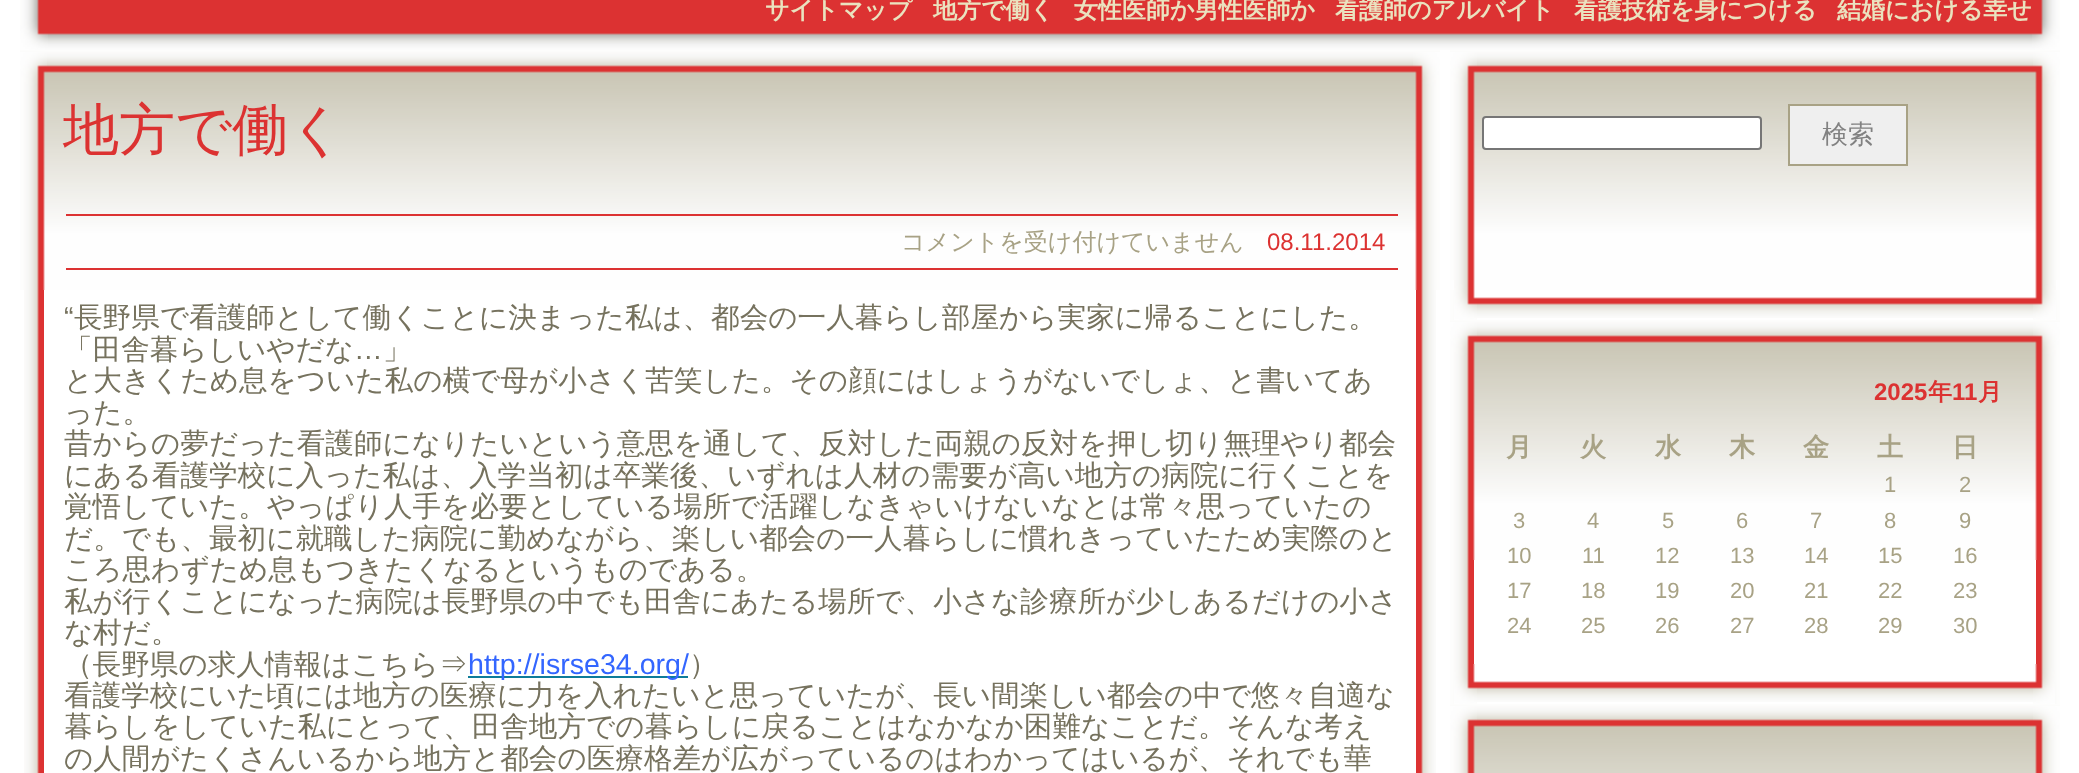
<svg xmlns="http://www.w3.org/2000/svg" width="2079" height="773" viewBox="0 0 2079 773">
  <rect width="100%" height="100%" fill="#fff"/>
  <path d="M48 20h1984v13H48z" fill="#dc3232"/>
  <image x="48" y="33" width="1984" height="17" href="img/1.png"/>
  <path d="M39 0h2002v20H39z" fill="#dc3232"/>
  <image x="2032" y="12" width="28" height="38" href="img/2.png"/>
  <image x="20" y="10" width="28" height="40" href="img/3.png"/>
  <image x="2041" y="0" width="19" height="12" href="img/4.png"/>
  <image x="20" y="0" width="19" height="10" href="img/5.png"/>
  <image x="1416" y="290" width="20" height="483" href="img/6.png"/>
  <image x="24" y="290" width="20" height="483" href="img/7.png"/>
  <image x="20" y="50" width="1420" height="240" href="img/8.png"/>
  <image x="1413" y="52" width="27" height="238" href="img/9.png"/>
  <image x="20" y="52" width="27" height="238" href="img/10.png"/>
  <path d="M66 214h1332v2H66z" fill="#dc3232"/>
  <path d="M66 268h1332v2H66z" fill="#dc3232"/>
  <path d="M468 676h220v2H468z" fill="#0e7c99"/>
  <image x="1477" y="297" width="556" height="21" href="img/11.png"/>
  <image x="2056" y="290" width="4" height="30" href="img/12.png"/>
  <image x="1450" y="290" width="4" height="30" href="img/13.png"/>
  <image x="1450" y="50" width="610" height="240" href="img/14.png"/>
  <image x="2033" y="280" width="23" height="40" href="img/15.png"/>
  <image x="1454" y="280" width="23" height="40" href="img/16.png"/>
  <image x="2033" y="52" width="27" height="228" href="img/17.png"/>
  <image x="1450" y="52" width="27" height="228" href="img/18.png"/>
  <rect x="1483" y="117" width="278" height="32" rx="3" fill="#fff" stroke="#767676" stroke-width="2"/>
  <path d="M1789 105h118v60H1789z" fill="#efefef" stroke="#a8a285" stroke-width="2"/>
  <image x="1477" y="681" width="556" height="21" href="img/11.png"/>
  <image x="2036" y="560" width="24" height="144" href="img/19.png"/>
  <image x="1450" y="560" width="24" height="144" href="img/20.png"/>
  <image x="1450" y="320" width="610" height="240" href="img/14.png"/>
  <image x="2033" y="664" width="22" height="40" href="img/21.png"/>
  <image x="1454" y="664" width="23" height="40" href="img/16.png"/>
  <image x="2033" y="322" width="27" height="238" href="img/9.png"/>
  <image x="1450" y="322" width="27" height="238" href="img/10.png"/>
  <image x="1450" y="704" width="610" height="69" href="img/22.png"/>
  <image x="2033" y="706" width="27" height="67" href="img/23.png"/>
  <image x="1450" y="706" width="27" height="67" href="img/24.png"/>
  <g font-family="WenQuanYi Zen Hei" font-size="24" font-weight="bold" fill="#eae2bf">
    <text x="765" y="18">サイトマップ</text>
    <text x="933" y="18">地方で働く</text>
    <text x="1074" y="18">女性医師か男性医師か</text>
    <text x="1335" y="18">看護師のアルバイト</text>
    <text x="1574" y="18">看護技術を身につける</text>
    <text x="1837" y="18">結婚における幸せ</text>
  </g>
  <text x="63" y="149" font-family="WenQuanYi Zen Hei" font-size="56" font-weight="500" fill="#dc3231">地方で働く</text>
  <text x="901" y="250" font-family="WenQuanYi Zen Hei" font-size="24" font-weight="500" fill="#a8a285">コメントを受け付けていません</text>
  <text x="1267" y="250" font-family="Liberation Sans" font-size="24" fill="#dc3231">08.11.2014</text>
  <text x="64" y="327" font-family="Liberation Sans" font-size="28.6" fill="#76725e">“</text>
  <g font-family="WenQuanYi Zen Hei" font-size="28.6" font-weight="500" fill="#76725e">
    <text x="74" y="327">長野県で看護師として働くことに決まった私は、都会の一人暮らし部屋から実家に帰ることにした。</text>
    <text x="64" y="359">「田舎暮らしいやだな</text>
  </g>
  <text x="354" y="359" font-family="Liberation Sans" font-size="28.6" fill="#76725e">…</text>
  <g font-family="WenQuanYi Zen Hei" font-size="28.6" font-weight="500" fill="#76725e">
    <text x="383" y="359">」</text>
    <text x="64" y="390">と大きくため息をついた私の横で母が小さく苦笑した。その顔にはしょうがないでしょ、と書いてあ</text>
    <text x="64" y="422">った。</text>
    <text x="64" y="453">昔からの夢だった看護師になりたいという意思を通して、反対した両親の反対を押し切り無理やり都会</text>
    <text x="64" y="485">にある看護学校に入った私は、入学当初は卒業後、いずれは人材の需要が高い地方の病院に行くことを</text>
    <text x="64" y="516">覚悟していた。やっぱり人手を必要としている場所で活躍しなきゃいけないなとは常々思っていたの</text>
    <text x="64" y="548">だ。でも、最初に就職した病院に勤めながら、楽しい都会の一人暮らしに慣れきっていたため実際のと</text>
    <text x="64" y="579">ころ思わずため息もつきたくなるというものである。</text>
    <text x="64" y="611">私が行くことになった病院は長野県の中でも田舎にあたる場所で、小さな診療所が少しあるだけの小さ</text>
    <text x="64" y="642">な村だ。</text>
    <text x="64" y="674">（長野県の求人情報はこちら⇒</text>
  </g>
  <text x="468" y="674" font-family="Liberation Sans" font-size="28.6" fill="#36f">http://isrse34.org/</text>
  <g font-family="WenQuanYi Zen Hei" font-size="28.6" font-weight="500" fill="#76725e">
    <text x="689" y="674">）</text>
    <text x="64" y="705">看護学校にいた頃には地方の医療に力を入れたいと思っていたが、長い間楽しい都会の中で悠々自適な</text>
    <text x="64" y="736">暮らしをしていた私にとって、田舎地方での暮らしに戻ることはなかなか困難なことだ。そんな考え</text>
    <text x="64" y="768">の人間がたくさんいるから地方と都会の医療格差が広がっているのはわかってはいるが、それでも華</text>
  </g>
  <text x="1822" y="143" font-family="WenQuanYi Zen Hei" font-size="26" font-weight="500" fill="#828282">検索</text>
  <text x="1874" y="400" font-family="Liberation Sans" font-size="24" font-weight="bold" fill="#dc3231">2025</text>
  <text x="1928" y="400" font-family="WenQuanYi Zen Hei" font-size="24" font-weight="bold" fill="#dc3231">年</text>
  <text x="1952" y="400" font-family="Liberation Sans" font-size="24" font-weight="bold" fill="#dc3231">11</text>
  <text x="1978" y="400" font-family="WenQuanYi Zen Hei" font-size="24" font-weight="bold" fill="#dc3231">月</text>
  <g font-family="WenQuanYi Zen Hei" font-size="26" font-weight="bold" fill="#a8a285">
    <text x="1506" y="456">月</text>
    <text x="1580" y="456">火</text>
    <text x="1655" y="456">水</text>
    <text x="1729" y="456">木</text>
    <text x="1803" y="456">金</text>
    <text x="1877" y="456">土</text>
    <text x="1952" y="456">日</text>
  </g>
  <g font-family="Liberation Sans" font-size="22" fill="#a8a285">
    <text x="1884" y="492">1</text>
    <text x="1959" y="492">2</text>
    <text x="1513" y="528">3</text>
    <text x="1587" y="528">4</text>
    <text x="1662" y="528">5</text>
    <text x="1736" y="528">6</text>
    <text x="1810" y="528">7</text>
    <text x="1884" y="528">8</text>
    <text x="1959" y="528">9</text>
    <text x="1507" y="563">10</text>
    <text x="1582" y="563">11</text>
    <text x="1655" y="563">12</text>
    <text x="1730" y="563">13</text>
    <text x="1804" y="563">14</text>
    <text x="1878" y="563">15</text>
    <text x="1953" y="563">16</text>
    <text x="1507" y="598">17</text>
    <text x="1581" y="598">18</text>
    <text x="1655" y="598">19</text>
    <text x="1730" y="598">20</text>
    <text x="1804" y="598">21</text>
    <text x="1878" y="598">22</text>
    <text x="1953" y="598">23</text>
    <text x="1507" y="633">24</text>
    <text x="1581" y="633">25</text>
    <text x="1655" y="633">26</text>
    <text x="1730" y="633">27</text>
    <text x="1804" y="633">28</text>
    <text x="1878" y="633">29</text>
    <text x="1953" y="633">30</text>
  </g>
</svg>
